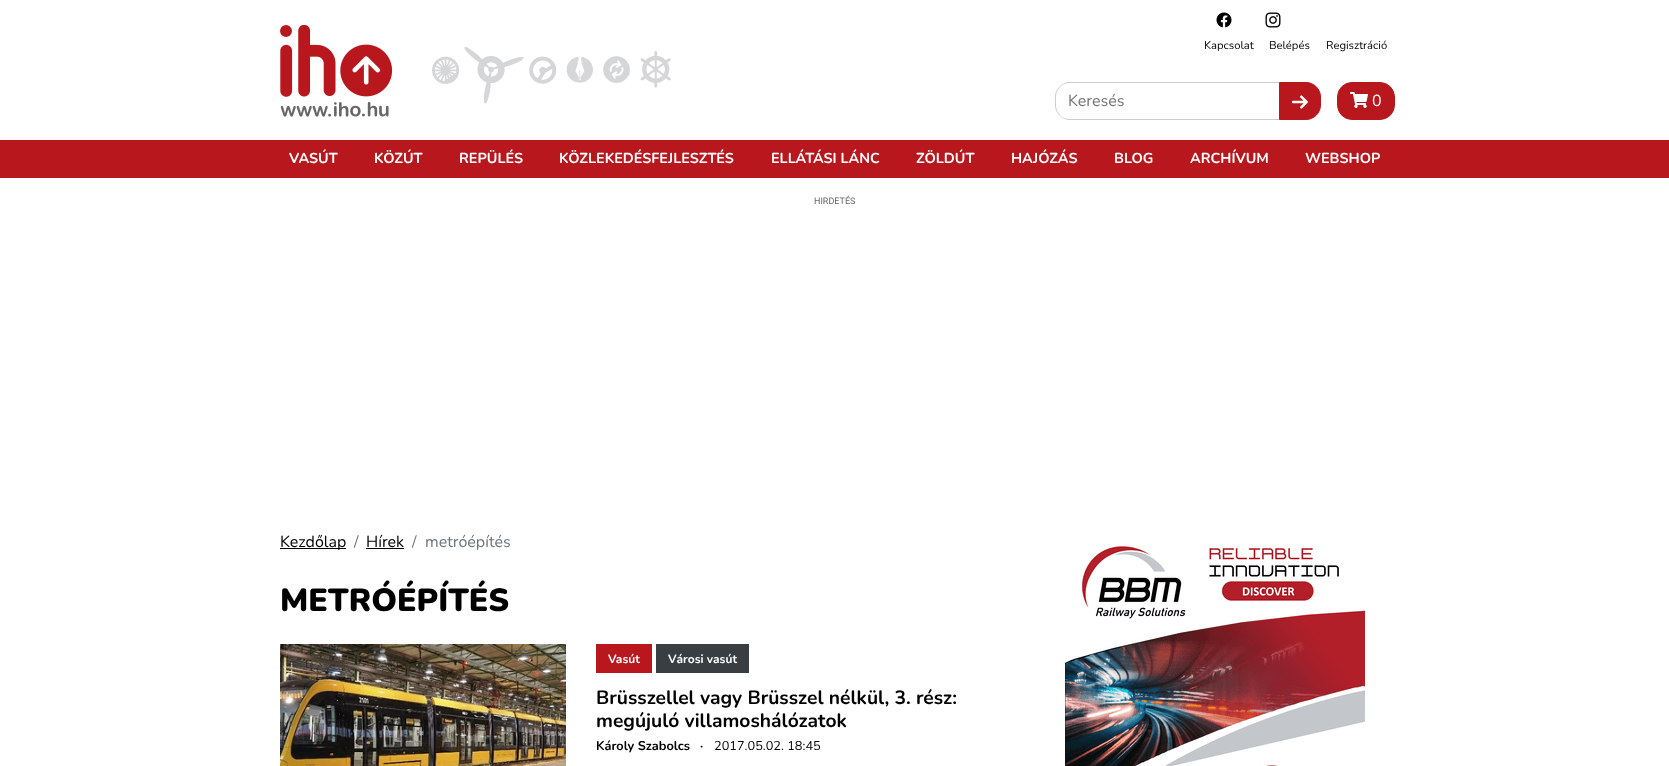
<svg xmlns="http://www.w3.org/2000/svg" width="1669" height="766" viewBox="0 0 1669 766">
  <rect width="100%" height="100%" fill="#fff"/>
  <image x="280" y="25" width="113" height="92" href="img/1.png"/>
  <image x="432" y="56" width="27" height="28" href="img/2.png"/>
  <image x="464" y="47" width="60" height="57" href="img/3.png"/>
  <image x="529" y="56" width="27" height="28" href="img/4.png"/>
  <image x="566" y="57" width="27" height="26" href="img/5.png"/>
  <image x="603" y="56" width="27" height="27" href="img/6.png"/>
  <image x="640" y="51" width="31" height="37" href="img/7.png"/>
  <image x="1216" y="12" width="16" height="16" href="img/8.png"/>
  <image x="1265" y="12" width="16" height="16" href="img/9.png"/>
  <path d="M1070 82H1279V120H1070C1062 120 1055 113 1055 105V97C1055 89 1062 82 1070 82ZM1070 83H1279V119H1070C1062 119 1056 113 1056 105V97C1056 89 1062 83 1070 83Z" fill="#ccc" fill-rule="evenodd"/>
  <path d="M1279.5 82.5H1306C1314 82.5 1320.5 89 1320.5 97V105C1320.5 113 1314 119.5 1306 119.5H1279.5Z" fill="#b8171d" stroke="#b8171d"/>
  <image x="1292" y="95" width="16" height="14" href="img/10.png"/>
  <rect x="1337.5" y="82.5" width="57" height="37" rx="14.5" fill="#b8171d" stroke="#b8171d"/>
  <image x="1350" y="92" width="18" height="16" href="img/11.png"/>
  <path d="M0 140h1669v38H0z" fill="#b8171d"/>
  <path d="M280 548h66v1H280z" fill="#000"/>
  <path d="M366 548h38v1H366z" fill="#000"/>
  <image x="280" y="644" width="286" height="122" href="img/12.png"/>
  <path d="M596 644h56v29H596z" fill="#b8171d"/>
  <path d="M656 644h93v29H656z" fill="#383e42"/>
  <image x="1065" y="546" width="300" height="220" href="img/13.png"/>
  <g font-family="Nunito" font-size="11.25" fill="#000">
    <text x="1204" y="49">Kapcsolat</text>
    <text x="1269" y="49">Belépés</text>
    <text x="1326" y="49">Regisztráció</text>
  </g>
  <text x="1068" y="106" font-family="Nunito" font-size="16" fill="#757575">Keresés</text>
  <text x="1372" y="106" font-family="Nunito" font-size="16" fill="#fff">0</text>
  <g font-family="Nunito" font-size="14.4" font-weight="bold" fill="#fff">
    <text x="289" y="163">VASÚT</text>
    <text x="374" y="163">KÖZÚT</text>
    <text x="459" y="163">REPÜLÉS</text>
    <text x="559" y="163">KÖZLEKEDÉSFEJLESZTÉS</text>
    <text x="771" y="163">ELLÁTÁSI LÁNC</text>
    <text x="916" y="163">ZÖLDÚT</text>
    <text x="1011" y="163">HAJÓZÁS</text>
    <text x="1114" y="163">BLOG</text>
    <text x="1190" y="163">ARCHÍVUM</text>
    <text x="1305" y="163">WEBSHOP</text>
  </g>
  <text x="814" y="204" font-family="Roboto" font-size="9" fill="#686570">HIRDETÉS</text>
  <text x="280" y="547" font-family="Nunito" font-size="16" fill="#000">Kezdőlap</text>
  <text x="354" y="547" font-family="Nunito" font-size="16" fill="#6c757d">/</text>
  <text x="366" y="547" font-family="Nunito" font-size="16" fill="#000">Hírek</text>
  <g font-family="Nunito" font-size="16" fill="#6c757d">
    <text x="412" y="547">/</text>
    <text x="425" y="547">metróépítés</text>
  </g>
  <text x="280" y="611" font-family="Nunito" font-size="32" font-weight="900" fill="#000">METRÓÉPÍTÉS</text>
  <g font-family="Nunito" font-size="12" font-weight="bold" fill="#fff">
    <text x="608" y="663">Vasút</text>
    <text x="668" y="663">Városi vasút</text>
  </g>
  <g font-family="Nunito" font-size="19.25" font-weight="bold" fill="#000">
    <text x="596" y="704">Brüsszellel vagy Brüsszel nélkül, 3. rész:</text>
    <text x="596" y="727">megújuló villamoshálózatok</text>
  </g>
  <g font-family="Nunito" font-size="12.75" font-weight="bold" fill="#000">
    <text x="596" y="750">Károly Szabolcs</text>
    <text x="700" y="750">·</text>
  </g>
  <text x="714" y="750" font-family="Nunito" font-size="12.75" fill="#000">2017.05.02. 18:45</text>
</svg>
